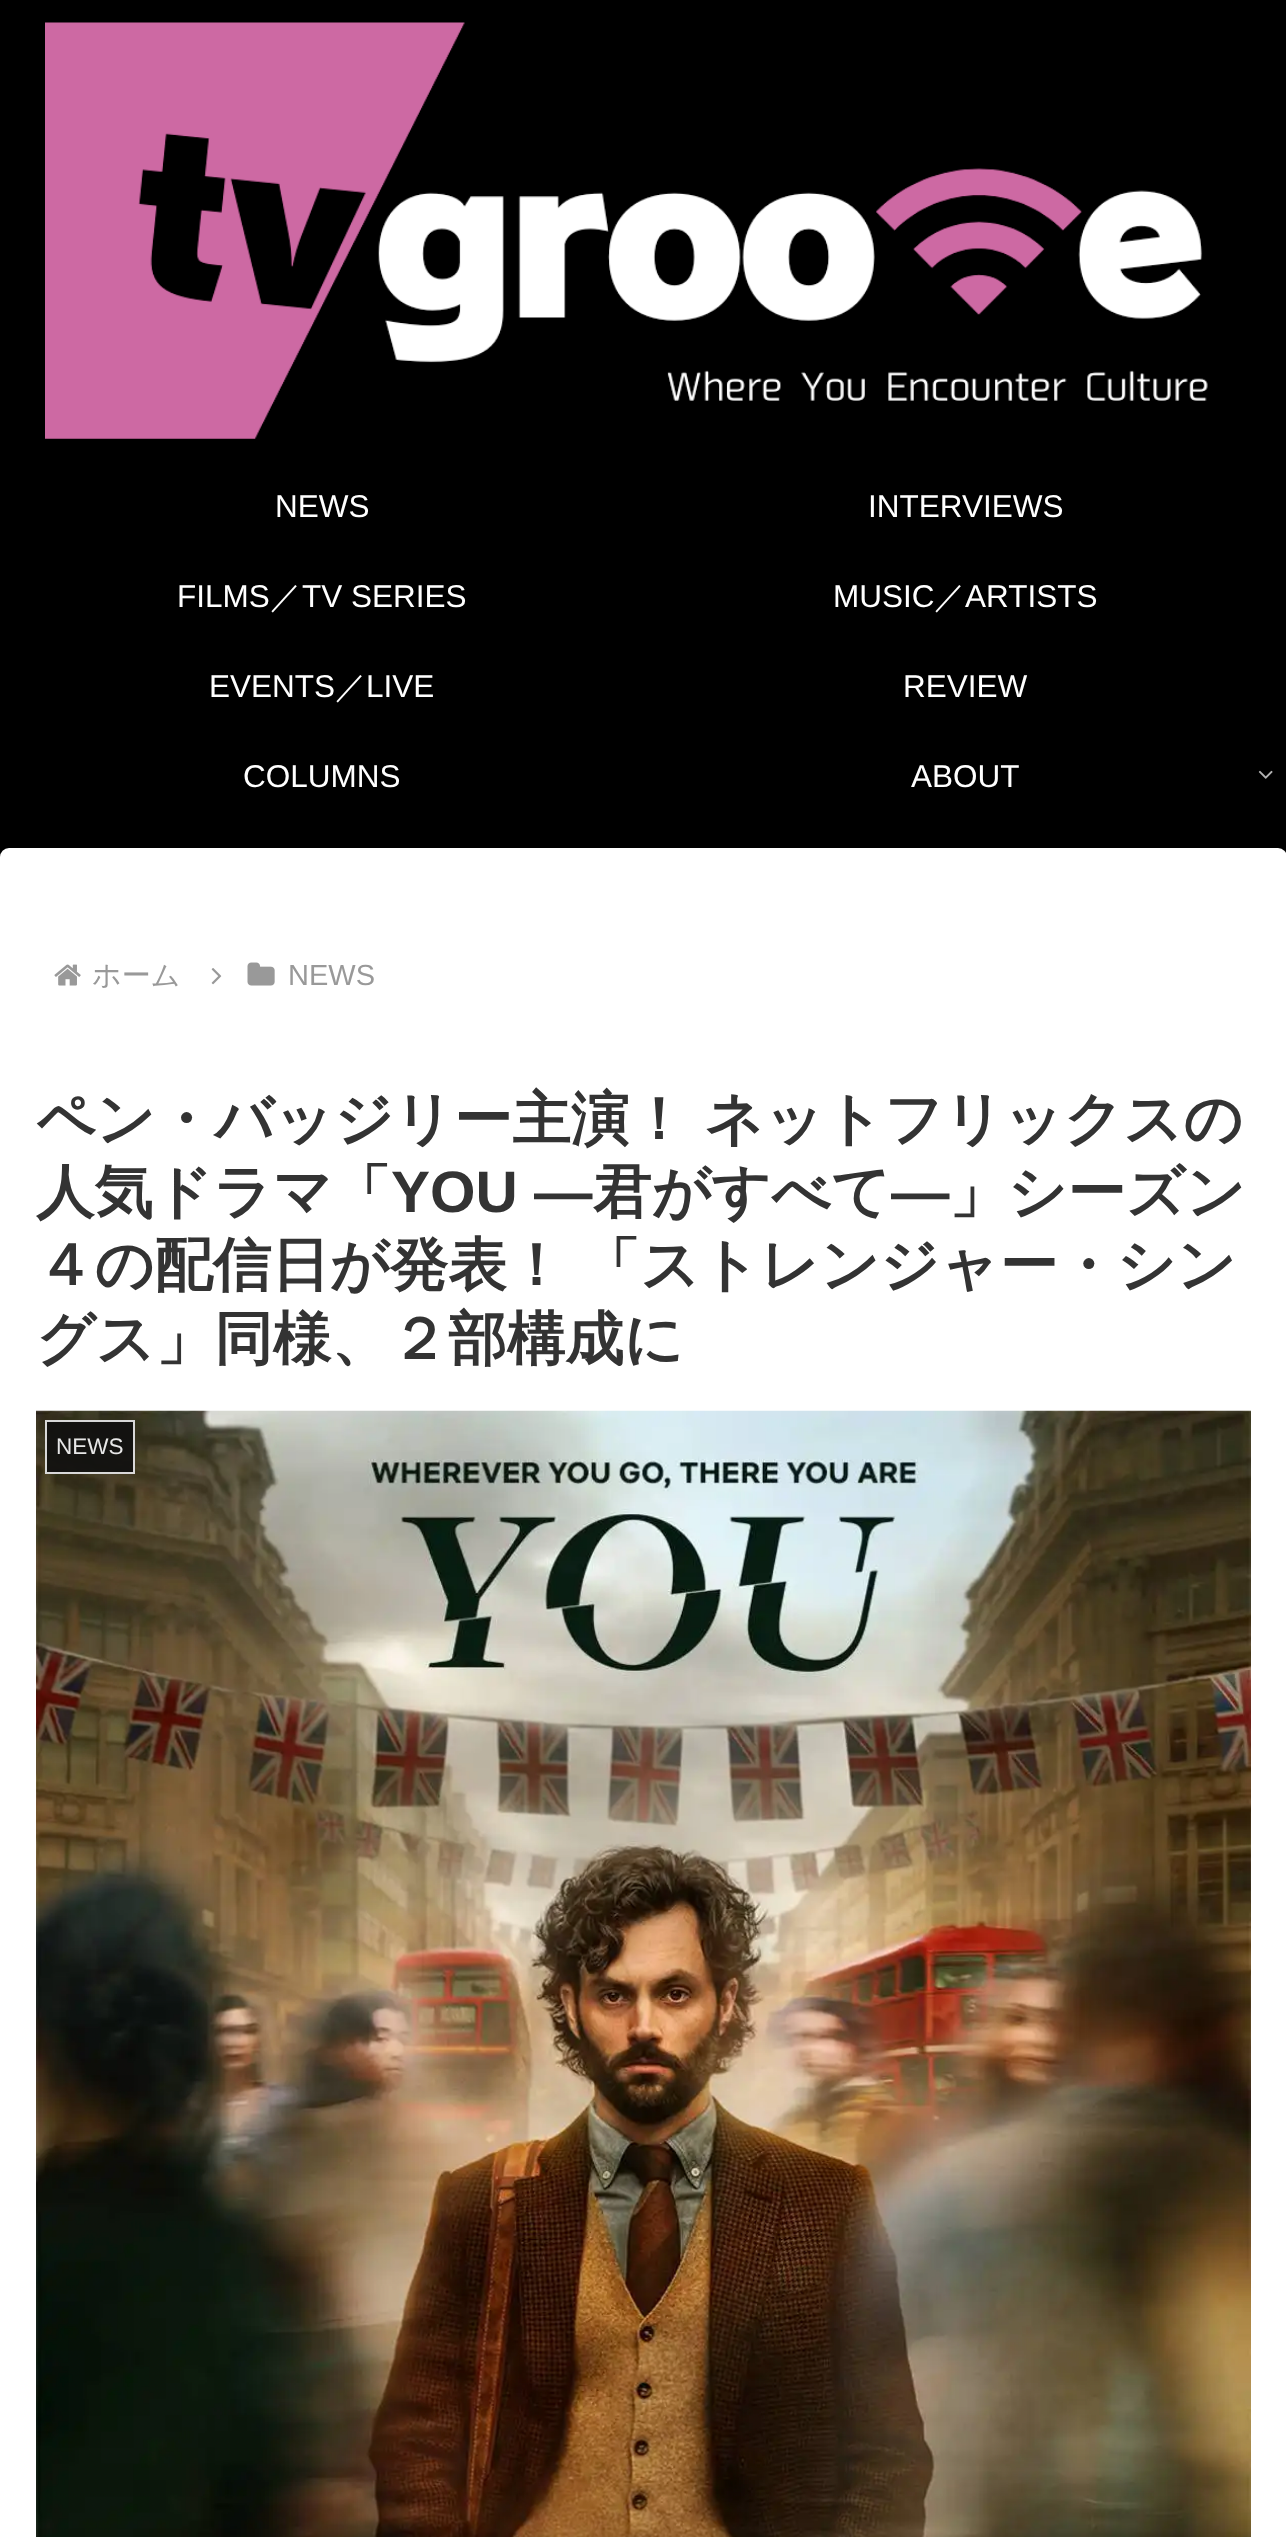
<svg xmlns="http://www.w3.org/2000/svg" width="1286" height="2537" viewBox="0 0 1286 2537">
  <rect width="100%" height="100%" fill="#000"/>
  <image x="45" y="22" width="1163" height="417" href="img/1.png"/>
  <image x="1258" y="770" width="15" height="9" href="img/2.png"/>
  <rect y="848" width="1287" height="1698" rx="9" fill="#fff"/>
  <image x="54" y="964" width="27" height="22" href="img/3.png"/>
  <image x="211" y="968" width="11" height="17" href="img/4.png"/>
  <image x="247" y="962" width="28" height="24" href="img/5.png"/>
  <image x="36" y="1410" width="1215" height="1127" href="img/6.png"/>
  <path d="M45 1420h90v54H45z" fill="#0f0f0fe6"/>
  <path d="M46 1421h88v52H46z" fill="none" stroke="#eeeeeee6" stroke-width="2"/>
  <g font-family="Liberation Sans" font-size="31.5" fill="#fff">
    <text x="275" y="517">NEWS</text>
    <text x="868" y="517">INTERVIEWS</text>
    <text x="177" y="607">FILMS</text>
  </g>
  <text x="270" y="607" font-family="WenQuanYi Zen Hei" font-size="31.5" font-weight="500" fill="#fff">／</text>
  <g font-family="Liberation Sans" font-size="31.5" fill="#fff">
    <text x="302" y="607">TV SERIES</text>
    <text x="833" y="607">MUSIC</text>
  </g>
  <text x="934" y="607" font-family="WenQuanYi Zen Hei" font-size="31.5" font-weight="500" fill="#fff">／</text>
  <g font-family="Liberation Sans" font-size="31.5" fill="#fff">
    <text x="965" y="607">ARTISTS</text>
    <text x="209" y="697">EVENTS</text>
  </g>
  <text x="335" y="697" font-family="WenQuanYi Zen Hei" font-size="31.5" font-weight="500" fill="#fff">／</text>
  <g font-family="Liberation Sans" font-size="31.5" fill="#fff">
    <text x="366" y="697">LIVE</text>
    <text x="903" y="697">REVIEW</text>
    <text x="243" y="787">COLUMNS</text>
    <text x="911" y="787">ABOUT</text>
  </g>
  <text x="92" y="985" font-family="WenQuanYi Zen Hei" font-size="29" font-weight="500" fill="#999">ホーム</text>
  <text x="288" y="985" font-family="Liberation Sans" font-size="29" fill="#999">NEWS</text>
  <g font-family="WenQuanYi Zen Hei" font-size="58.5" font-weight="bold" fill="#333">
    <text x="36" y="1139" word-spacing="-1">ペン・バッジリー主演！ ネットフリックスの</text>
    <text x="36" y="1212">人気ドラマ「</text>
  </g>
  <text x="391" y="1212" font-family="Liberation Sans" font-size="58.5" font-weight="bold" fill="#333">YOU ―</text>
  <text x="593" y="1212" font-family="WenQuanYi Zen Hei" font-size="58.5" font-weight="bold" fill="#333">君がすべて</text>
  <text x="891" y="1212" font-family="Liberation Sans" font-size="58.5" font-weight="bold" fill="#333">―</text>
  <g font-family="WenQuanYi Zen Hei" font-size="58.5" font-weight="bold" fill="#333">
    <text x="949" y="1212">」シーズン</text>
    <text x="36" y="1285" word-spacing="-1">４の配信日が発表！ 「ストレンジャー・シン</text>
    <text x="36" y="1359">グス」同様、２部構成に</text>
  </g>
  <text x="56" y="1454" font-family="Liberation Sans" font-size="22.5" fill="#e7e7e7">NEWS</text>
</svg>
